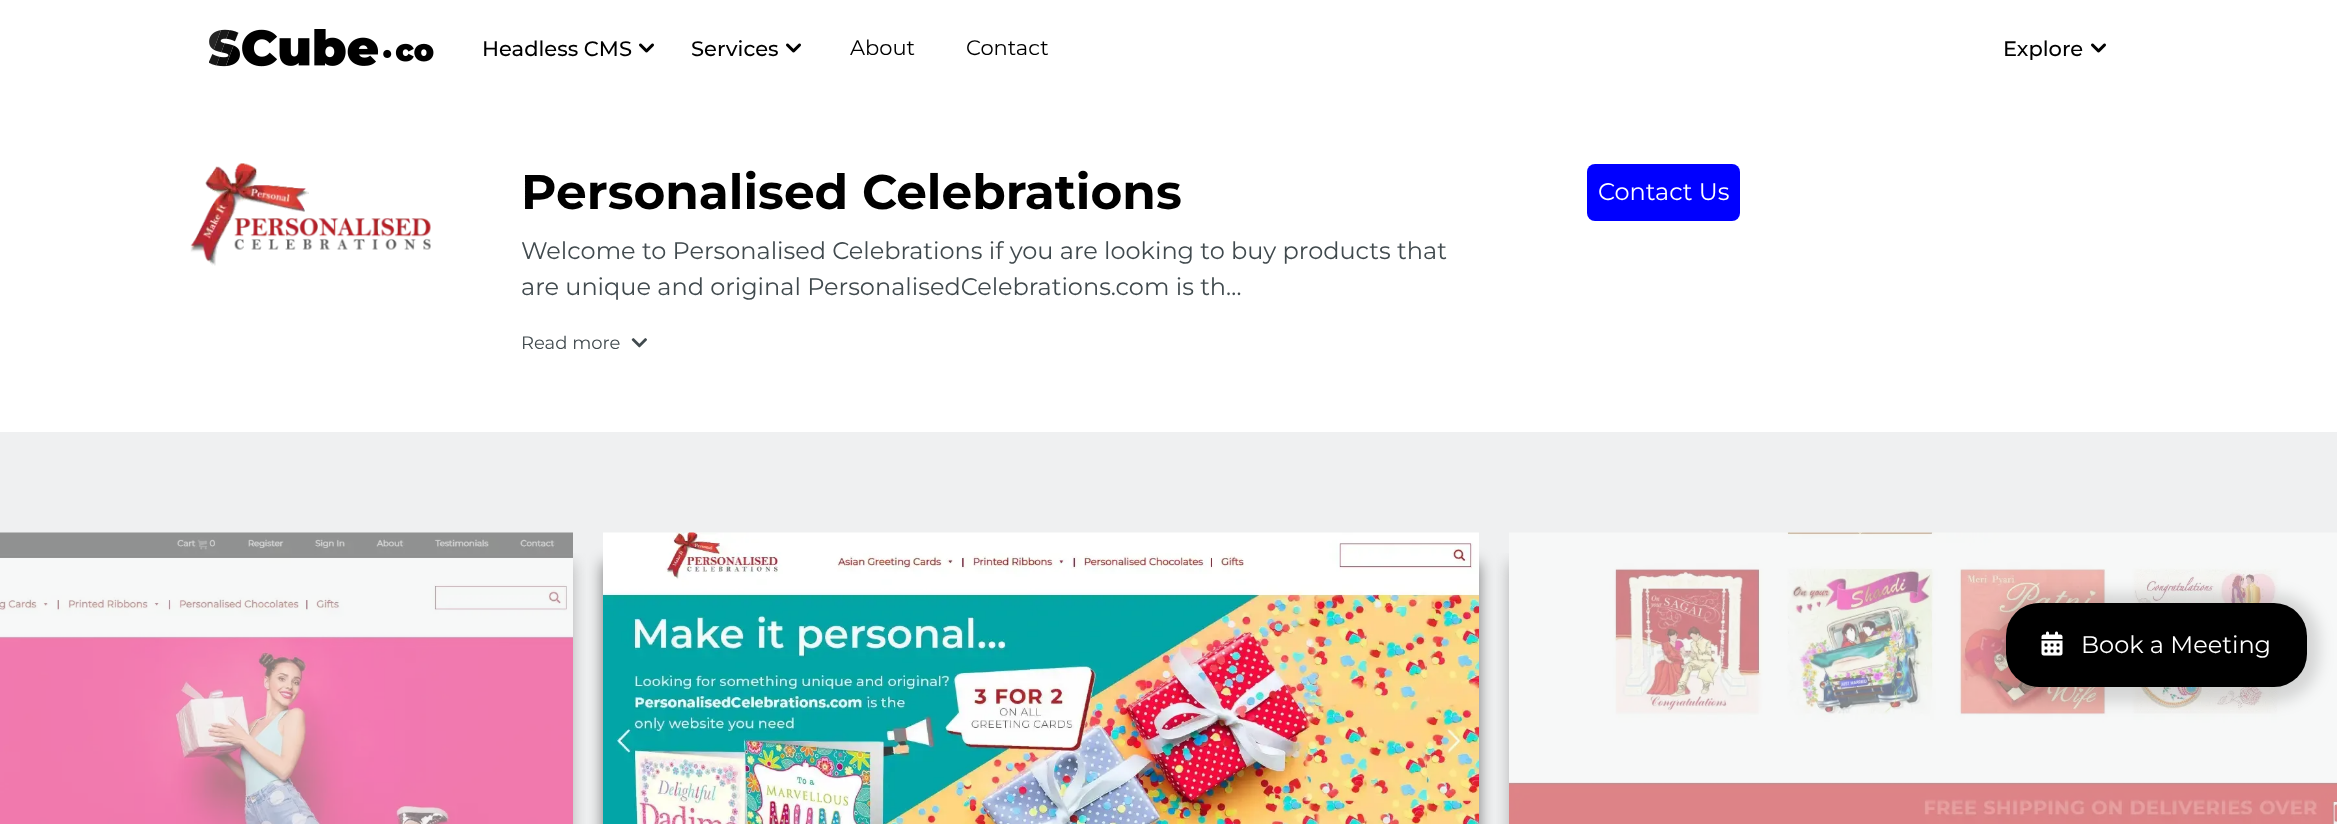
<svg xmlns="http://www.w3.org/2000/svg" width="2337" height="824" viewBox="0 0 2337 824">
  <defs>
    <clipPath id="clip1"><path d="M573 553h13v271H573z"/></clipPath>
    <clipPath id="clip2"><path d="M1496 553h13v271H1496z"/></clipPath>
  </defs>
  <rect width="100%" height="100%" fill="#fff"/>
  <image x="209" y="29" width="225" height="38" href="img/1.png"/>
  <image x="639" y="43" width="15" height="10" href="img/2.png"/>
  <image x="786" y="43" width="15" height="10" href="img/2.png"/>
  <image x="2091" y="43" width="15" height="10" href="img/2.png"/>
  <image x="190" y="163" width="241" height="103" href="img/3.png"/>
  <image x="631" y="338" width="16" height="10" href="img/4.png"/>
  <rect x="1587" y="164" width="153" height="57" rx="8" fill="#00f"/>
  <path d="M0 432h2337v392H0z" fill="#eff0f1"/>
  <g clip-path="url(#clip1)">
    <path d="M-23 563h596v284H-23z" fill="#77787880" filter="blur(7.5px)"/>
  </g>
  <image x="0" y="532" width="573" height="292" href="img/5.png"/>
  <path d="M603 563h876v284H603z" fill="#00000080" filter="blur(7.5px)"/>
  <image x="603" y="532" width="876" height="292" href="img/6.png"/>
  <g clip-path="url(#clip2)">
    <path d="M1509 563h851v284H1509z" fill="#77787880" filter="blur(7.5px)"/>
  </g>
  <image x="1509" y="532" width="828" height="292" href="img/7.png"/>
  <rect x="1994" y="594" width="325" height="108" rx="45" fill="#00000024" filter="blur(7.5px)"/>
  <rect x="2006" y="603" width="301" height="84" rx="33" fill="#000"/>
  <image x="2041" y="631" width="22" height="25" href="img/8.png"/>
  <g font-family="Montserrat" font-size="21" font-weight="500" fill="#000">
    <text x="482" y="56">Headless CMS</text>
    <text x="691" y="56">Services</text>
  </g>
  <g font-family="Montserrat" font-size="21" fill="#000">
    <text x="850" y="55">About</text>
    <text x="966" y="55">Contact</text>
  </g>
  <text x="2003" y="56" font-family="Montserrat" font-size="21" font-weight="500" fill="#000">Explore</text>
  <text x="521" y="209" font-family="Montserrat" font-size="48.6" font-weight="bold" fill="#000">Personalised Celebrations</text>
  <g font-family="Montserrat" font-size="24" fill="#414a4e">
    <text x="521" y="259">Welcome to Personalised Celebrations if you are looking to buy products that</text>
    <text x="521" y="295">are unique and original PersonalisedCelebrations.com is th…</text>
  </g>
  <text x="521" y="349" font-family="Montserrat" font-size="18" fill="#414a4e">Read more</text>
  <g font-family="Montserrat" font-size="24" fill="#fff">
    <text x="1598" y="200">Contact Us</text>
    <text x="2081" y="653">Book a Meeting</text>
  </g>
</svg>
